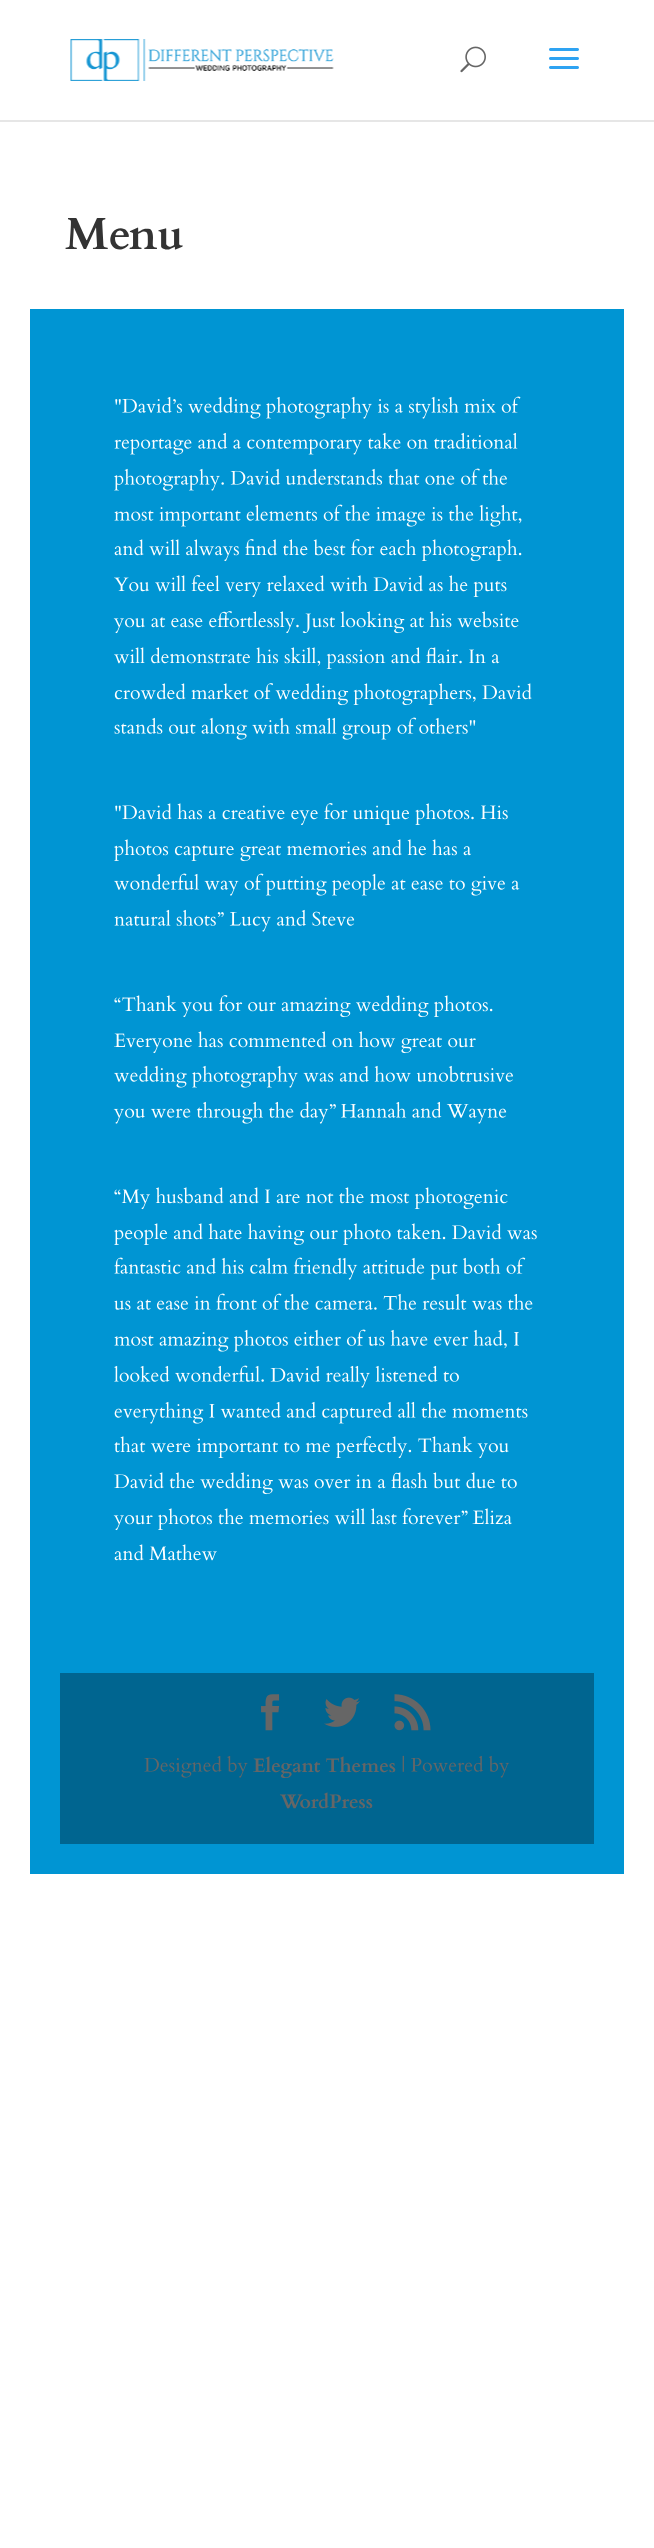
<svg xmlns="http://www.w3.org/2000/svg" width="654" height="2548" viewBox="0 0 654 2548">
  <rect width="100%" height="100%" fill="#fff"/>
  <path d="M0 120h654v2H0z" fill="#e6e6e6"/>
  <image x="70" y="39" width="264" height="42" href="img/1.png"/>
  <image x="460" y="46" width="26" height="27" href="img/2.png"/>
  <image x="549" y="48" width="30" height="21" href="img/3.png"/>
  <path d="M30 309h594v1565H30z" fill="#0095d3"/>
  <image x="115" y="396" width="406" height="23" href="img/4.png"/>
  <image x="114" y="432" width="404" height="23" href="img/5.png"/>
  <image x="114" y="468" width="393" height="23" href="img/6.png"/>
  <image x="114" y="504" width="408" height="23" href="img/7.png"/>
  <image x="114" y="539" width="408" height="23" href="img/8.png"/>
  <image x="114" y="575" width="393" height="23" href="img/9.png"/>
  <image x="113" y="611" width="406" height="23" href="img/10.png"/>
  <image x="114" y="647" width="386" height="22" href="img/11.png"/>
  <image x="114" y="683" width="418" height="23" href="img/12.png"/>
  <image x="114" y="717" width="362" height="23" href="img/13.png"/>
  <image x="115" y="803" width="393" height="23" href="img/14.png"/>
  <image x="114" y="839" width="358" height="23" href="img/15.png"/>
  <image x="114" y="873" width="406" height="23" href="img/16.png"/>
  <image x="114" y="909" width="110" height="17" href="img/17.png"/>
  <image x="229" y="909" width="126" height="23" href="img/18.png"/>
  <image x="114" y="995" width="379" height="23" href="img/19.png"/>
  <image x="114" y="1031" width="362" height="23" href="img/20.png"/>
  <image x="114" y="1065" width="399" height="23" href="img/21.png"/>
  <image x="113" y="1101" width="223" height="23" href="img/22.png"/>
  <image x="341" y="1101" width="166" height="23" href="img/23.png"/>
  <image x="114" y="1187" width="394" height="23" href="img/24.png"/>
  <image x="114" y="1223" width="423" height="23" href="img/25.png"/>
  <image x="114" y="1257" width="412" height="23" href="img/26.png"/>
  <image x="114" y="1293" width="419" height="17" href="img/27.png"/>
  <image x="114" y="1329" width="405" height="23" href="img/28.png"/>
  <image x="114" y="1365" width="345" height="23" href="img/29.png"/>
  <image x="114" y="1401" width="414" height="23" href="img/30.png"/>
  <image x="114" y="1436" width="395" height="23" href="img/31.png"/>
  <image x="114" y="1472" width="403" height="23" href="img/32.png"/>
  <image x="113" y="1508" width="355" height="23" href="img/33.png"/>
  <image x="472" y="1508" width="40" height="17" href="img/34.png"/>
  <image x="114" y="1544" width="103" height="17" href="img/35.png"/>
  <path d="M60 1673h534v171H60z" fill="#006590"/>
  <image x="261" y="1694" width="19" height="37" href="img/36.png"/>
  <image x="324" y="1697" width="36" height="30" href="img/37.png"/>
  <image x="394" y="1694" width="37" height="37" href="img/38.png"/>
  <image x="144" y="1756" width="104" height="22" href="img/39.png"/>
  <image x="402" y="1755" width="108" height="23" href="img/40.png"/>
  <text x="65" y="249" font-family="Cardo" font-size="45" font-weight="bold" fill="#333">Menu</text>
  <g font-family="Cardo" font-size="19.5" font-weight="bold" fill="#666">
    <text x="253" y="1772">Elegant Themes</text>
    <text x="280" y="1808">WordPress</text>
  </g>
</svg>
